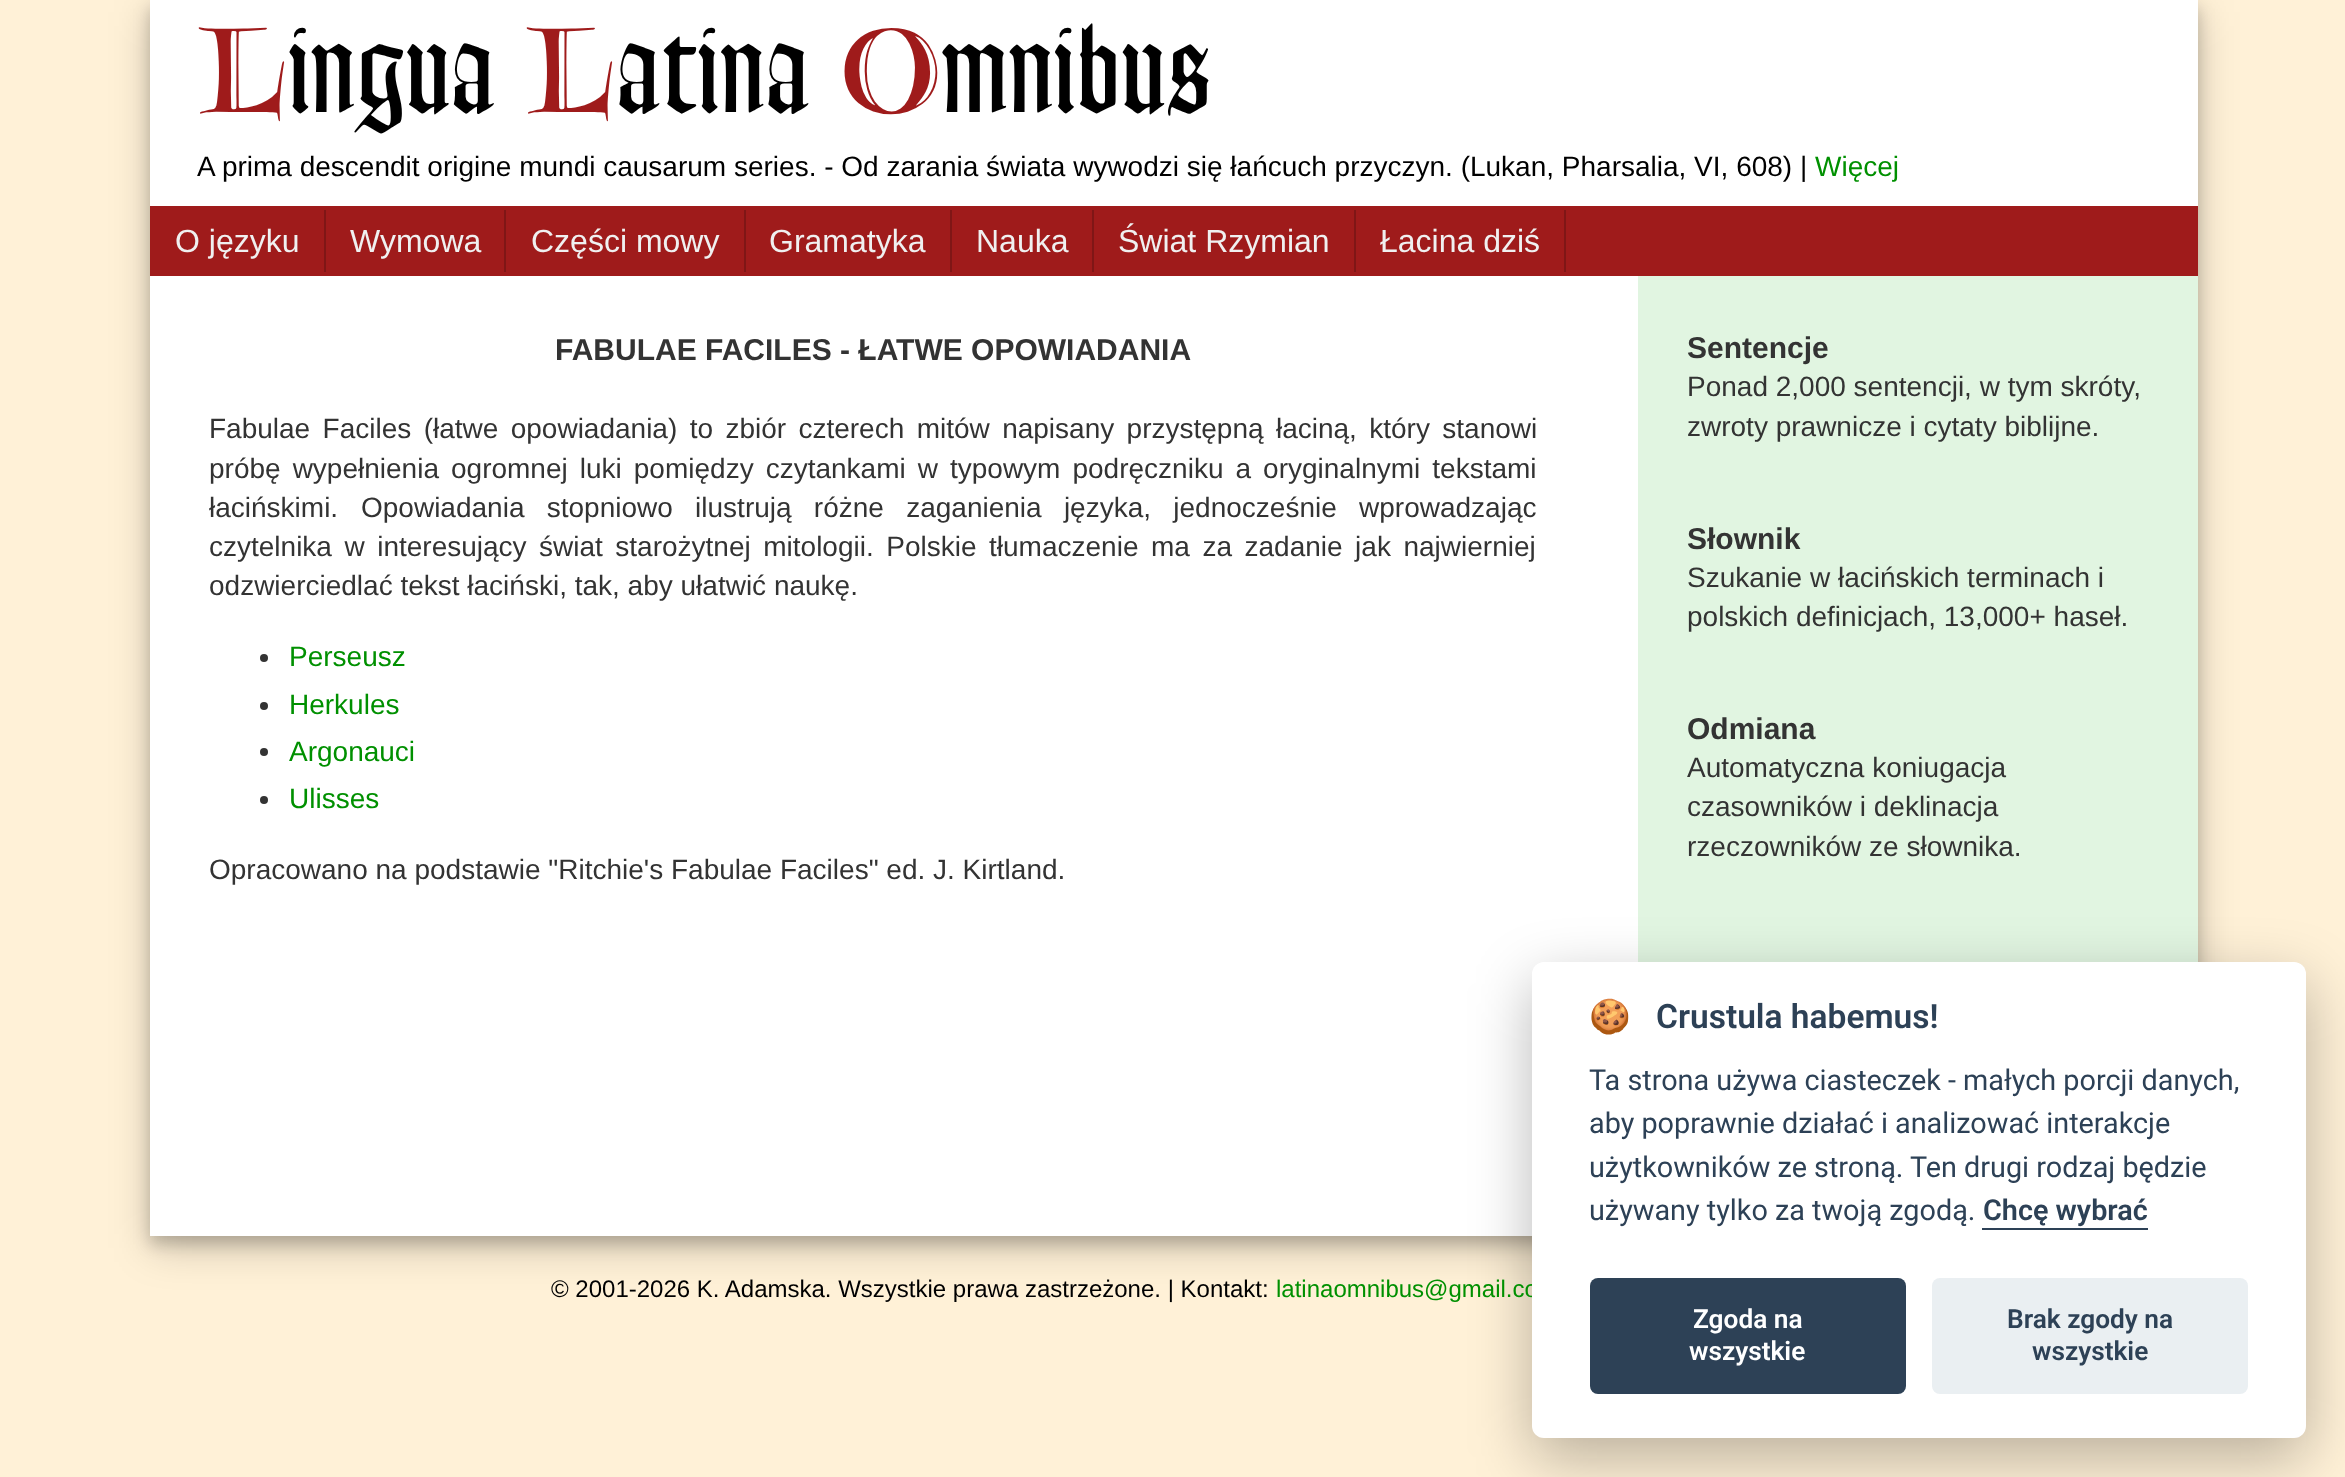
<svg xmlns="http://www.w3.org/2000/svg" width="2345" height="1477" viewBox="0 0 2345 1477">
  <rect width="100%" height="100%" fill="#fff1d7"/>
  <path d="M150 12h2048v1236H150z" fill="#00000030" filter="blur(20px)"/>
  <path d="M150 8h2048v1236H150z" fill="#00000033" filter="blur(8px)"/>
  <path d="M150 0h2048v1236H150z" fill="#fff"/>
  <path d="M150 206h2048v70H150z" fill="#9f1b1b"/>
  <path d="M324 210h2v62H324z" fill="#7f1616"/>
  <path d="M504 210h2v62H504z" fill="#7f1616"/>
  <path d="M744 210h2v62H744z" fill="#7f1616"/>
  <path d="M950 210h2v62H950z" fill="#7f1616"/>
  <path d="M1092 210h2v62H1092z" fill="#7f1616"/>
  <path d="M1354 210h2v62H1354z" fill="#7f1616"/>
  <path d="M1564 210h2v62H1564z" fill="#7f1616"/>
  <circle cx="264" cy="658" r="4" fill="#333"/>
  <circle cx="264" cy="706" r="4" fill="#333"/>
  <circle cx="264" cy="752" r="4" fill="#333"/>
  <circle cx="264" cy="800" r="4" fill="#333"/>
  <path d="M1638 276h560v686H1638z" fill="#e1f5e1"/>
  <rect x="1532" y="982" width="774" height="476" rx="12" fill="#02020347" filter="blur(30px)"/>
  <text x="197" y="112" font-family="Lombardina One" font-size="120" fill="#9f1b1b">L</text>
  <text x="287" y="112" font-family="Lombardina One" font-size="120" fill="#000">ingua</text>
  <text x="525" y="112" font-family="Lombardina One" font-size="120" fill="#9f1b1b">L</text>
  <text x="615" y="112" font-family="Lombardina One" font-size="120" fill="#000">atina</text>
  <text x="839" y="112" font-family="Lombardina One" font-size="120" fill="#9f1b1b">O</text>
  <text x="940" y="112" font-family="Lombardina One" font-size="120" fill="#000">mnibus</text>
  <text x="197" y="176" font-family="Liberation Sans" font-size="28" fill="#000">A prima descendit origine mundi causarum series. - Od zarania świata wywodzi się łańcuch przyczyn. (Lukan, Pharsalia, VI, 608) |</text>
  <text x="1815" y="176" font-family="Liberation Sans" font-size="28" fill="#009000">Więcej</text>
  <g font-family="Liberation Sans" font-size="32" fill="#f0f0f0">
    <text x="175" y="252">O języku</text>
    <text x="350" y="252">Wymowa</text>
    <text x="531" y="252">Części mowy</text>
    <text x="769" y="252">Gramatyka</text>
    <text x="976" y="252">Nauka</text>
    <text x="1118" y="252">Świat Rzymian</text>
    <text x="1380" y="252">Łacina dziś</text>
  </g>
  <text x="555" y="360" font-family="Liberation Sans" font-size="30" font-weight="bold" fill="#333">FABULAE FACILES - ŁATWE OPOWIADANIA</text>
  <g font-family="Liberation Sans" font-size="28" fill="#333">
    <text x="209" y="438" word-spacing="4.6">Fabulae Faciles (łatwe opowiadania) to zbiór czterech mitów napisany przystępną łaciną, który stanowi</text>
    <text x="209" y="478" word-spacing="4.25">próbę wypełnienia ogromnej luki pomiędzy czytankami w typowym podręczniku a oryginalnymi tekstami</text>
    <text x="209" y="517">łacińskimi.</text>
    <text x="361" y="517" word-spacing="14.5">Opowiadania stopniowo ilustrują różne zaganienia języka, jednocześnie wprowadzając</text>
    <text x="209" y="556" word-spacing="4.75">czytelnika w interesujący</text>
    <text x="539" y="556" word-spacing="4.75">świat starożytnej mitologii. Polskie tłumaczenie ma za zadanie jak najwierniej</text>
    <text x="209" y="595">odzwierciedlać tekst łaciński, tak, aby ułatwić naukę.</text>
  </g>
  <g font-family="Liberation Sans" font-size="28" fill="#009000">
    <text x="289" y="666">Perseusz</text>
    <text x="289" y="714">Herkules</text>
    <text x="289" y="761">Argonauci</text>
    <text x="289" y="808">Ulisses</text>
  </g>
  <text x="209" y="879" font-family="Liberation Sans" font-size="28" fill="#333">Opracowano na podstawie "Ritchie's Fabulae Faciles" ed. J. Kirtland.</text>
  <text x="1687" y="358" font-family="Liberation Sans" font-size="30" font-weight="bold" fill="#333">Sentencje</text>
  <g font-family="Liberation Sans" font-size="28" fill="#333">
    <text x="1687" y="396">Ponad 2,000 sentencji, w tym skróty,</text>
    <text x="1687" y="436">zwroty prawnicze i cytaty biblijne.</text>
  </g>
  <text x="1687" y="549" font-family="Liberation Sans" font-size="30" font-weight="bold" fill="#333">Słownik</text>
  <g font-family="Liberation Sans" font-size="28" fill="#333">
    <text x="1687" y="587">Szukanie w łacińskich terminach i</text>
    <text x="1687" y="626">polskich definicjach, 13,000+ haseł.</text>
  </g>
  <text x="1687" y="739" font-family="Liberation Sans" font-size="30" font-weight="bold" fill="#333">Odmiana</text>
  <g font-family="Liberation Sans" font-size="28" fill="#333">
    <text x="1687" y="777">Automatyczna koniugacja</text>
    <text x="1687" y="816">czasowników i deklinacja</text>
    <text x="1687" y="856">rzeczowników ze słownika.</text>
  </g>
  <text x="551" y="1297" font-family="Liberation Sans" font-size="24" fill="#000">© 2001-2026 K. Adamska. Wszystkie prawa zastrzeżone. | Kontakt:</text>
  <text x="1276" y="1297" font-family="Liberation Sans" font-size="24" fill="#009000">latinaomnibus@gmail.co</text>
  <rect x="1532" y="962" width="774" height="476" rx="12" fill="#fff"/>
  <text x="1589" y="1028" font-family="Noto Color Emoji" font-size="33.5" font-weight="bold" fill="#2d4156">🍪</text>
  <text x="1656" y="1028" font-family="Roboto" font-size="33.5" font-weight="600" fill="#2d4156">Crustula habemus!</text>
  <g font-family="Roboto" font-size="28.8" fill="#2d4156">
    <text x="1589" y="1090">Ta strona używa ciasteczek - małych porcji danych,</text>
    <text x="1589" y="1133">aby poprawnie działać i analizować interakcje</text>
    <text x="1589" y="1177">użytkowników ze stroną. Ten drugi rodzaj będzie</text>
    <text x="1589" y="1220">używany tylko za twoją zgodą.</text>
  </g>
  <text x="1983" y="1220" font-family="Roboto" font-size="28.8" font-weight="600" fill="#2d4156">Chcę wybrać</text>
  <path d="M1982 1228h166v2H1982z" fill="#2d4156"/>
  <rect x="1590" y="1278" width="316" height="116" rx="8" fill="#2d4156"/>
  <g font-family="Roboto" font-size="26.25" font-weight="600" fill="#fff">
    <text x="1693" y="1328">Zgoda na</text>
    <text x="1689" y="1360">wszystkie</text>
  </g>
  <rect x="1932" y="1278" width="316" height="116" rx="8" fill="#eaeff2"/>
  <g font-family="Roboto" font-size="26.25" font-weight="600" fill="#2d4156">
    <text x="2007" y="1328">Brak zgody na</text>
    <text x="2032" y="1360">wszystkie</text>
  </g>
</svg>
